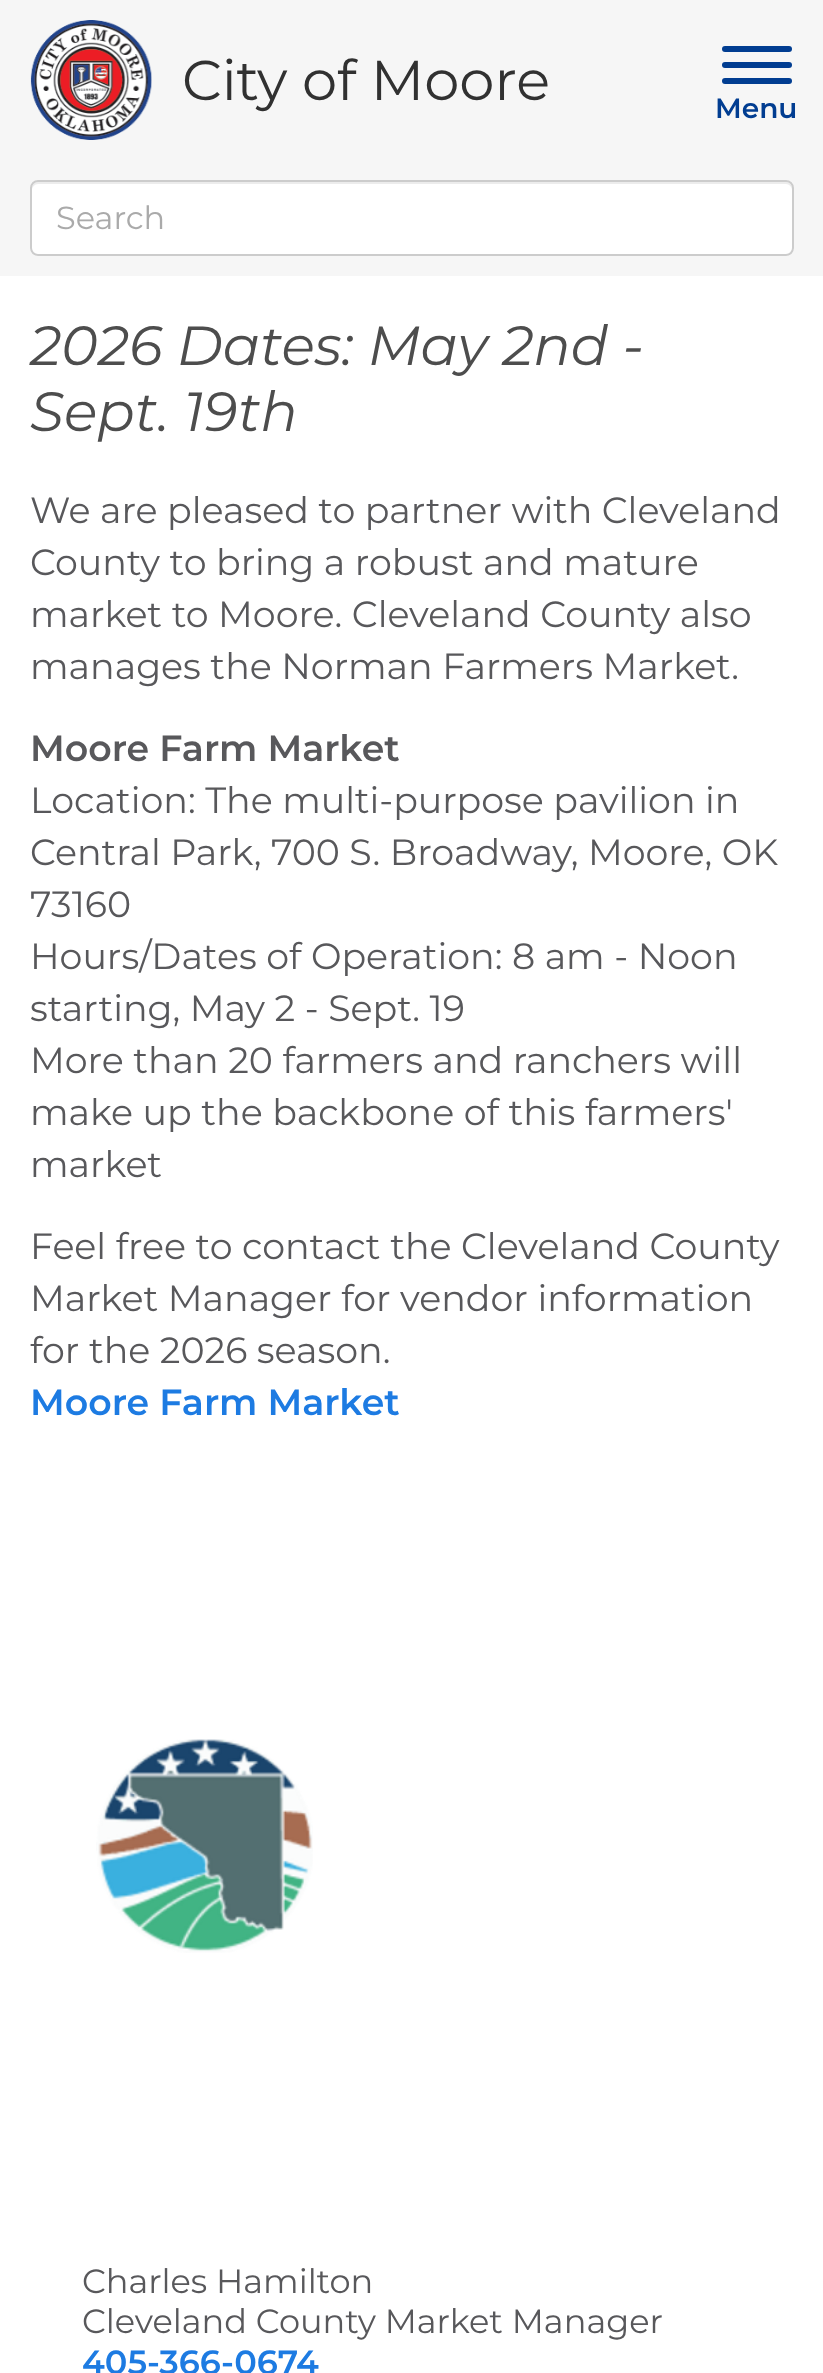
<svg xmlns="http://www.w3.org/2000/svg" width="823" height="2373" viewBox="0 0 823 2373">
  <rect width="100%" height="100%" fill="#fff"/>
  <path d="M0 0h823v276H0z" fill="#f6f6f6"/>
  <image x="30" y="20" width="122" height="120" href="img/1.png"/>
  <rect x="722" y="46" width="70" height="6" rx="3" fill="#013d91"/>
  <rect x="722" y="62" width="70" height="6" rx="3" fill="#013d91"/>
  <rect x="722" y="78" width="70" height="6" rx="3" fill="#013d91"/>
  <rect x="30" y="180" width="764" height="76" rx="8" fill="#fff"/>
  <path d="M38 184H786C789 184 792 187 792 190V188C792 185 789 182 786 182H38C35 182 32 185 32 188V190C32 187 35 184 38 184Z" fill="#ececec"/>
  <rect x="31" y="181" width="762" height="74" rx="7" fill="none" stroke="#ccc" stroke-width="2"/>
  <image x="96" y="1739" width="217" height="214" href="img/2.png"/>
  <text x="182" y="100" font-family="Montserrat" font-size="56" fill="#313131">City of Moore</text>
  <text x="715" y="118" font-family="Montserrat" font-size="28" font-weight="600" fill="#013d91">Menu</text>
  <text x="56" y="229" font-family="Montserrat" font-size="32" fill="#aaa">Search</text>
  <g font-family="Montserrat" font-size="55.2" font-style="italic" fill="#4d4d4d">
    <text x="30" y="365">2026 Dates: May 2nd -</text>
    <text x="30" y="431">Sept. 19th</text>
  </g>
  <g font-family="Montserrat" font-size="36.4" fill="#58585b">
    <text x="30" y="523">We are pleased to partner with Cleveland</text>
    <text x="30" y="575">County to bring a robust and mature</text>
    <text x="30" y="627">market to Moore. Cleveland County also</text>
    <text x="30" y="679">manages the Norman Farmers Market.</text>
  </g>
  <text x="30" y="761" font-family="Montserrat" font-size="36.4" font-weight="600" fill="#58585b">Moore Farm Market</text>
  <g font-family="Montserrat" font-size="36.4" fill="#58585b">
    <text x="30" y="813">Location: The multi-purpose pavilion in</text>
    <text x="30" y="865">Central Park, 700 S. Broadway, Moore, OK</text>
    <text x="30" y="917">73160</text>
    <text x="30" y="969">Hours/Dates of Operation: 8 am - Noon</text>
    <text x="30" y="1021">starting, May 2 - Sept. 19</text>
    <text x="30" y="1073">More than 20 farmers and ranchers will</text>
    <text x="30" y="1125">make up the backbone of this farmers'</text>
    <text x="30" y="1177">market</text>
    <text x="30" y="1259">Feel free to contact the Cleveland County</text>
    <text x="30" y="1311">Market Manager for vendor information</text>
    <text x="30" y="1363">for the 2026 season.</text>
  </g>
  <text x="30" y="1415" font-family="Montserrat" font-size="36.4" font-weight="600" fill="#1d7be2">Moore Farm Market</text>
  <g font-family="Montserrat" font-size="33.6" fill="#58585b">
    <text x="82" y="2293">Charles Hamilton</text>
    <text x="82" y="2333">Cleveland County Market Manager</text>
  </g>
  <text x="82" y="2374" font-family="Montserrat" font-size="33.6" font-weight="600" fill="#1d7be2">405-366-0674</text>
</svg>
